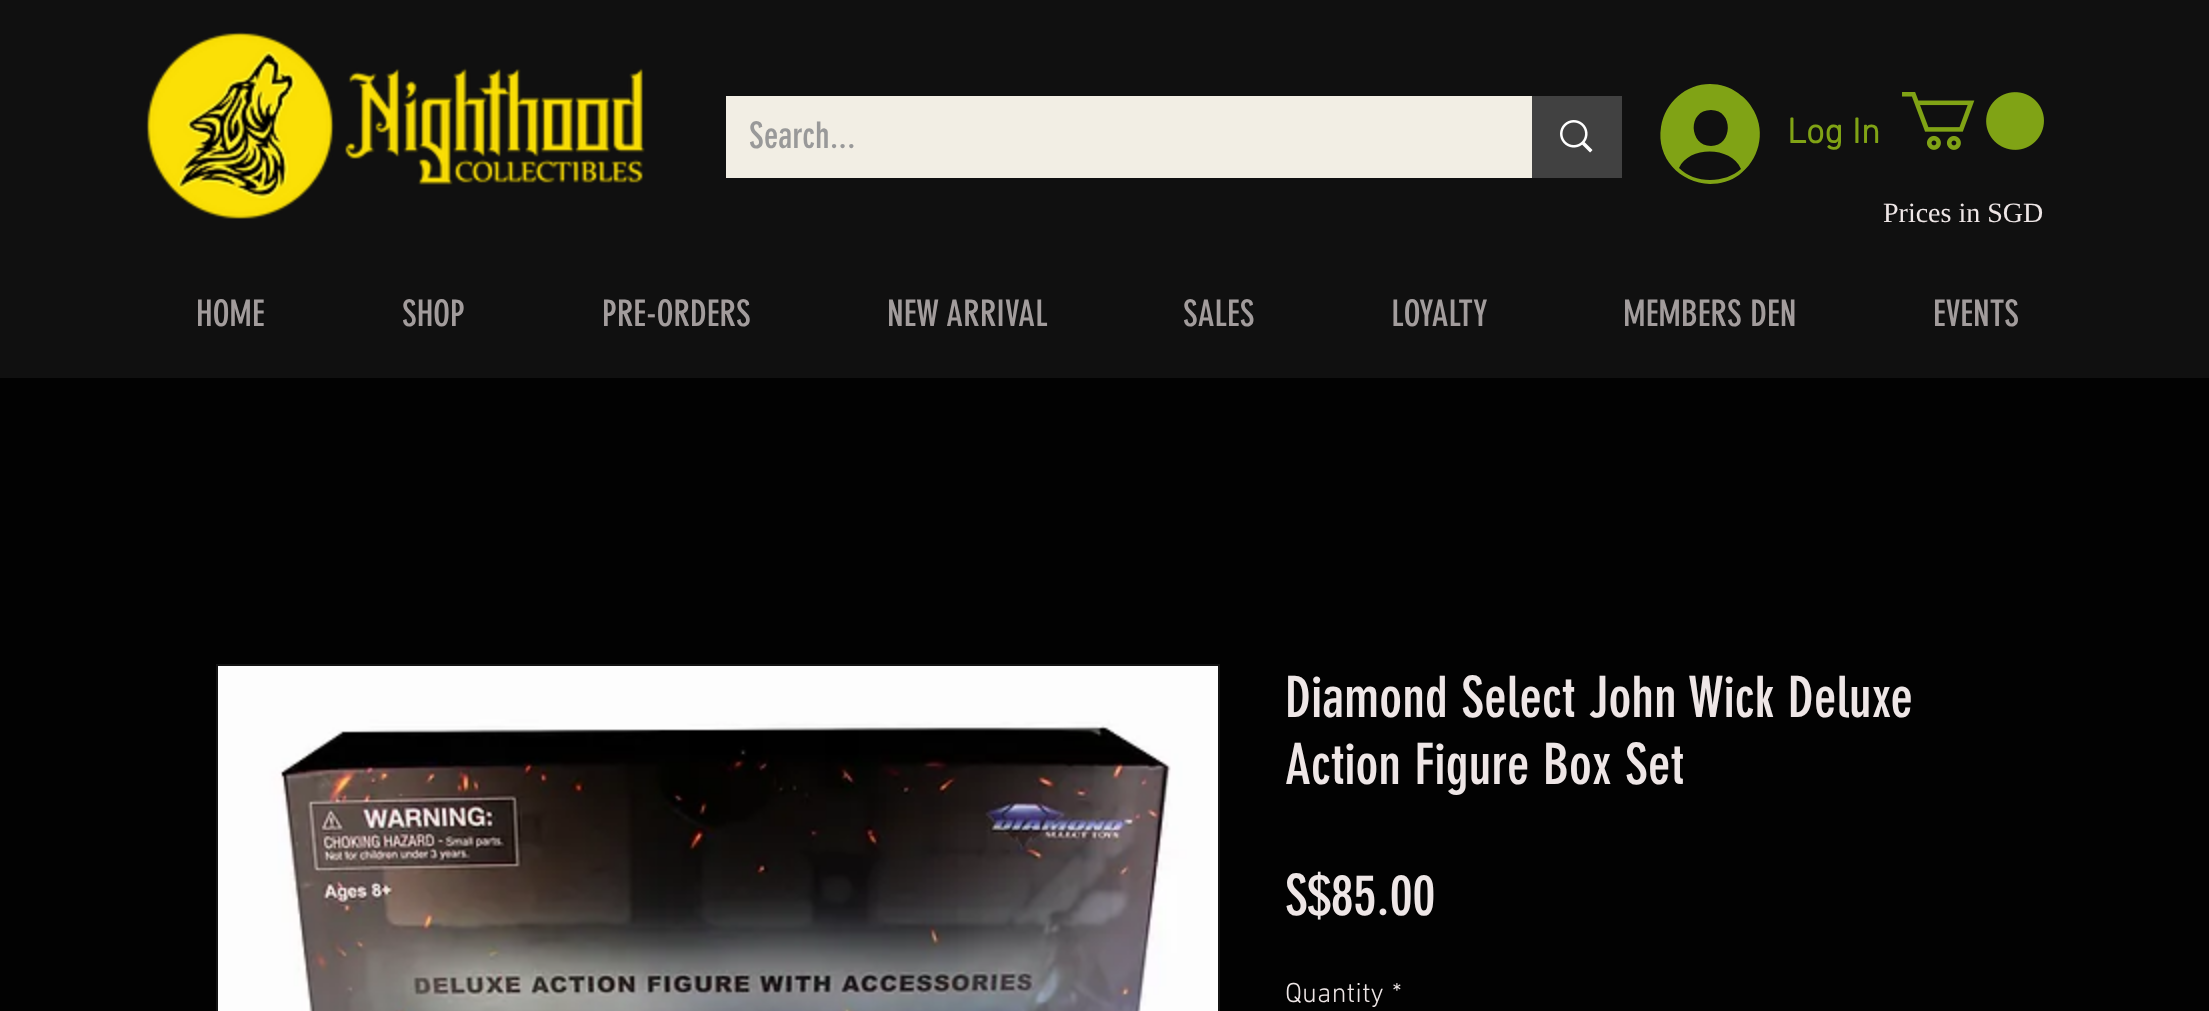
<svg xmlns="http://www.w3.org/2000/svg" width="2209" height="1011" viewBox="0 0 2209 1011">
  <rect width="100%" height="100%" fill="#020202"/>
  <path d="M0 0h2209v378H0z" fill="#101010"/>
  <image x="146" y="32" width="499" height="187" href="img/1.png"/>
  <path d="M726 96h806v82H726z" fill="#f2eee4"/>
  <path d="M1532 96h90v82H1532z" fill="#414141"/>
  <image x="1560" y="120" width="33" height="33" href="img/2.png"/>
  <path d="M1710 84C1686 84 1665 102 1661 127C1656 158 1680 183 1710 184C1720 184 1731 181 1739 175C1759 160 1766 133 1754 111C1749 102 1746 99 1738 93C1730 87 1720 84 1710 84ZM1711 110C1687 110 1689 146 1711 146C1733 146 1734 110 1711 110ZM1710 180C1722 180 1733 176 1741 169C1731 146 1689 146 1679 168C1687 176 1698 180 1710 180Z" fill="#80a315" fill-rule="evenodd"/>
  <image x="1902" y="92" width="142" height="58" href="img/3.png"/>
  <path d="M217 665h1002v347H217z" fill="none" stroke="#141414" stroke-width="2"/>
  <image x="218" y="666" width="1000" height="345" href="img/4.png"/>
  <text x="749" y="148" font-family="'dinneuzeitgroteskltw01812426'" font-size="36" fill="#999">Search...</text>
  <text x="1787" y="143" font-family="'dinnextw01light'" font-size="36" font-weight="bold" fill="#80a315">Log In</text>
  <text x="1883" y="222" font-family="Liberation Serif" font-size="28" fill="#eee6e6">Prices in SGD</text>
  <g font-family="'dinneuzeitgroteskltw01812426'" font-size="36" fill="#a29c9c">
    <text x="196" y="326">HOME</text>
    <text x="402" y="326">SHOP</text>
    <text x="602" y="326">PRE-ORDERS</text>
    <text x="887" y="326">NEW ARRIVAL</text>
    <text x="1183" y="326">SALES</text>
    <text x="1391" y="326">LOYALTY</text>
    <text x="1623" y="326">MEMBERS DEN</text>
    <text x="1933" y="326">EVENTS</text>
  </g>
  <g font-family="'dinneuzeitgroteskltw01812426'" font-size="56" fill="#eee6e6">
    <text x="1285" y="717">Diamond Select John Wick Deluxe</text>
    <text x="1285" y="784">Action Figure Box Set</text>
    <text x="1285" y="915">S$85.00</text>
  </g>
  <g font-family="'dinnextw01light'" font-size="28" font-weight="300" fill="#eee6e6">
    <text x="1285" y="1002">Quantity</text>
    <text x="1392" y="1002">*</text>
  </g>
</svg>
